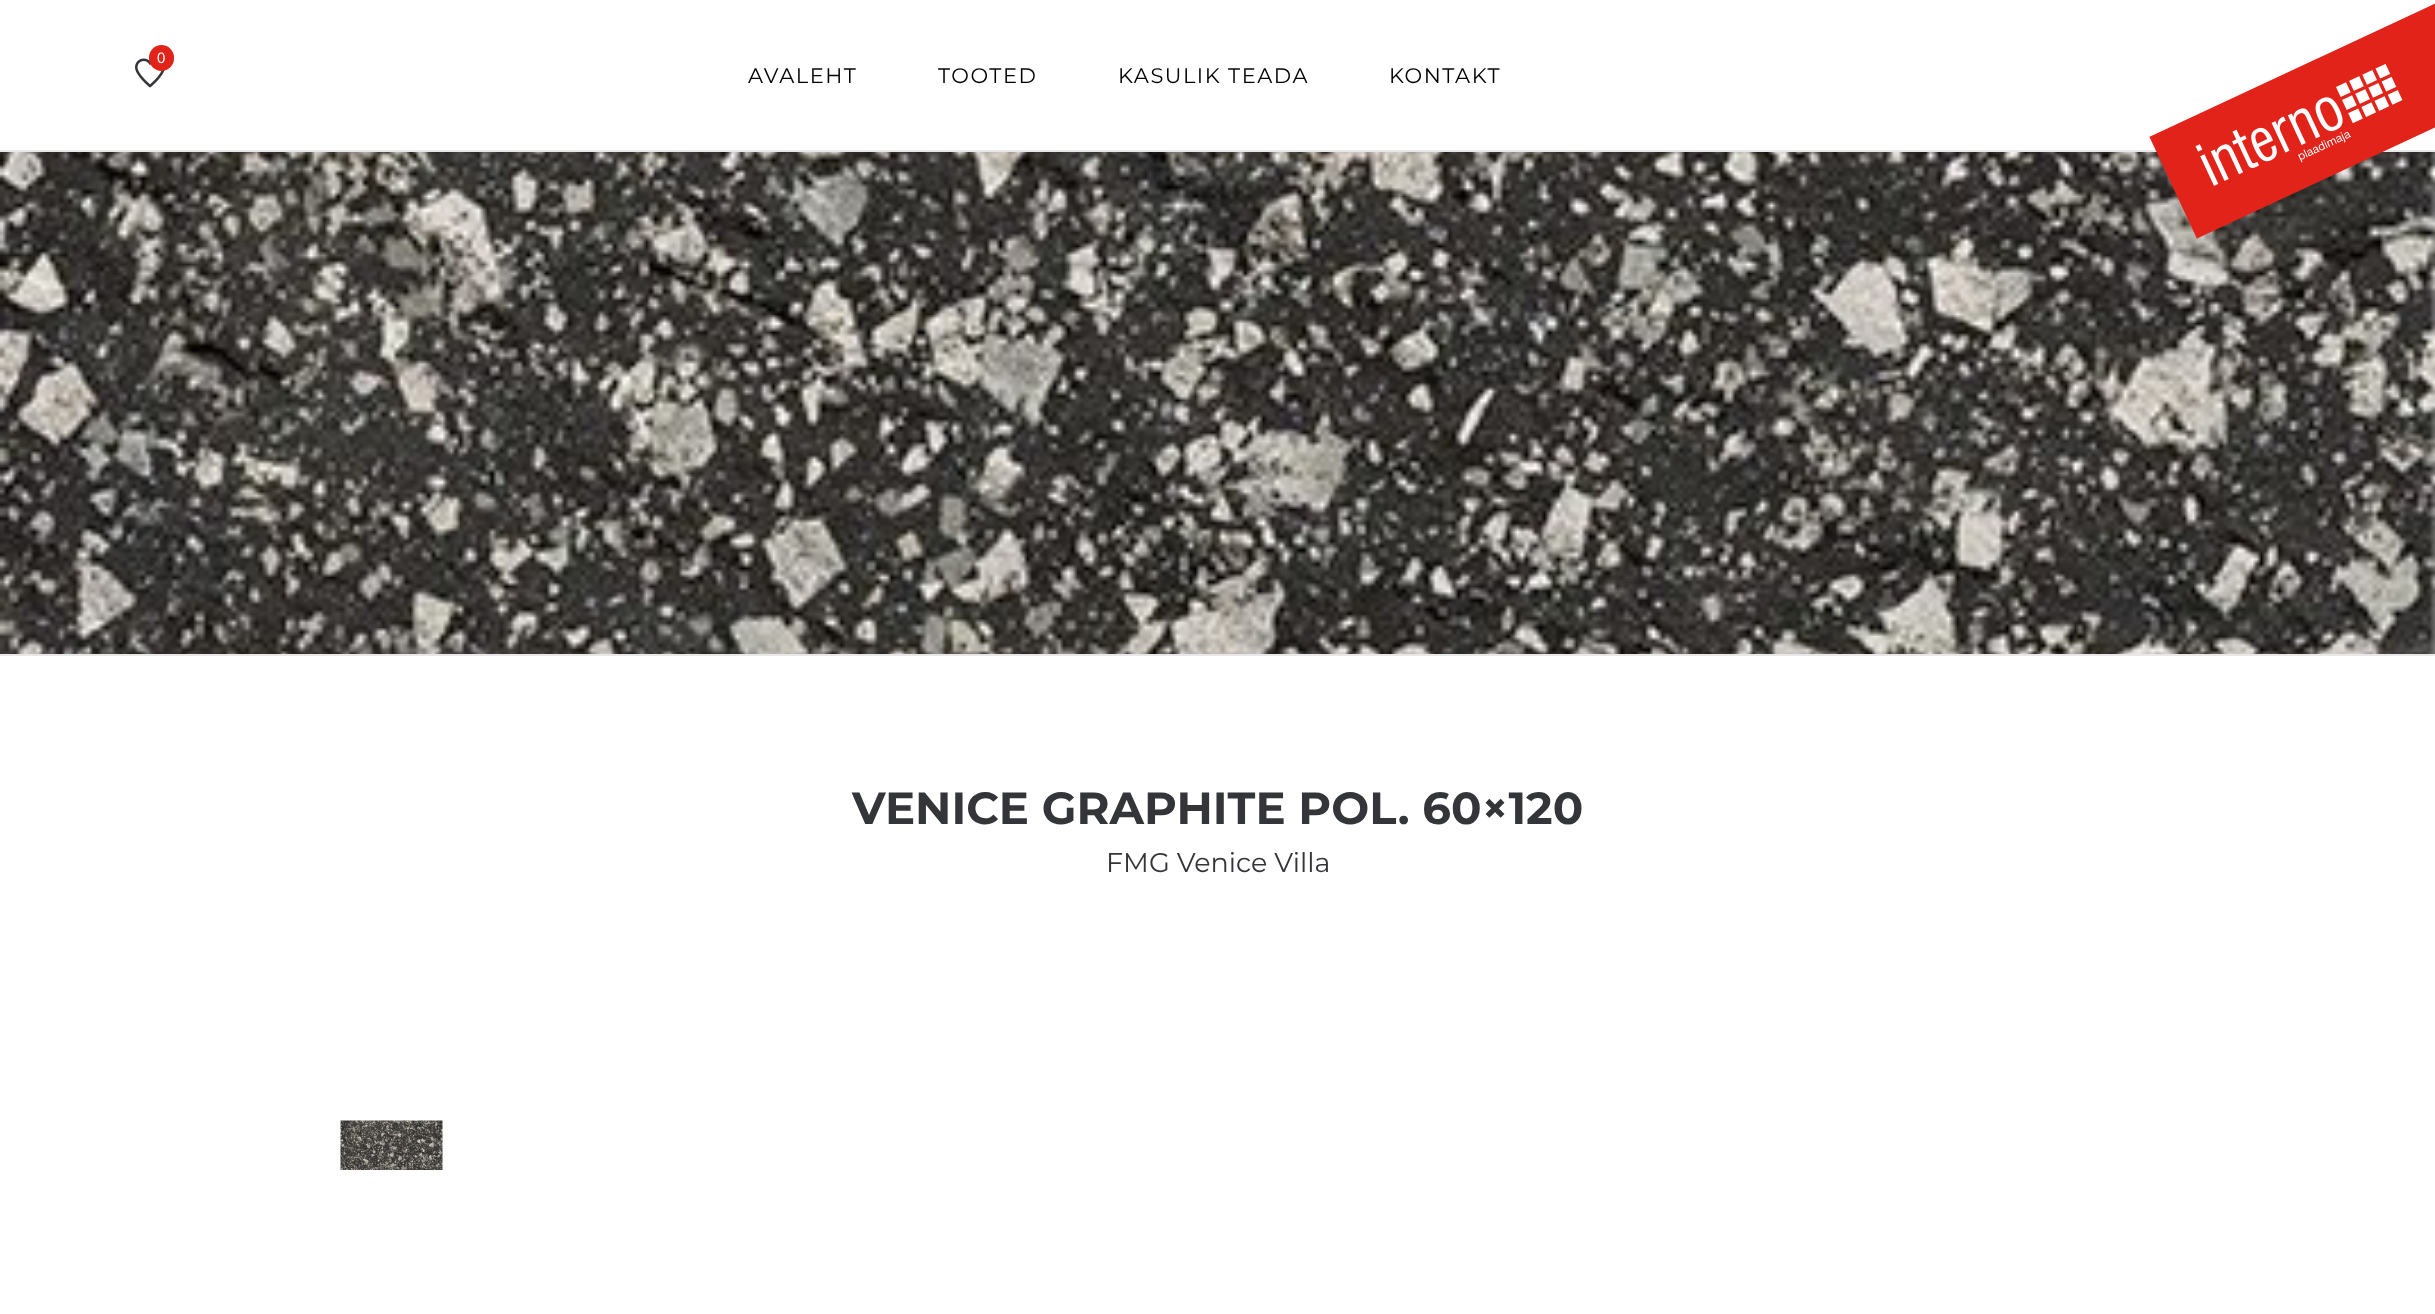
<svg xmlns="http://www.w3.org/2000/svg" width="2435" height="1314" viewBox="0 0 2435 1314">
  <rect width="100%" height="100%" fill="#fff"/>
  <image x="135" y="58" width="30" height="30" href="img/1.png"/>
  <rect x="149" y="45" width="25" height="26" rx="12.5" fill="#e2231a"/>
  <image x="0" y="152" width="2435" height="502" href="img/3.png"/>
  <path d="M0 150h2435v2H0z" fill="#e8e8e8"/>
  <image x="2149" y="3" width="286" height="236" href="img/2.png"/>
  <path d="M0 654h2435v2H0z" fill="#e8e8e8"/>
  <image x="340" y="1120" width="103" height="50" href="img/4.png"/>
  <text x="157" y="63" font-family="Liberation Sans" font-size="15" fill="#fff">0</text>
  <g font-family="Montserrat" font-size="21" letter-spacing="1.5" fill="#000">
    <text x="748" y="83">AVALEHT</text>
    <text x="938" y="83">TOOTED</text>
    <text x="1118" y="83">KASULIK TEADA</text>
    <text x="1389" y="83">KONTAKT</text>
  </g>
  <text x="852" y="824" font-family="Montserrat" font-size="45" font-weight="bold" fill="#343538">VENICE GRAPHITE POL. 60×120</text>
  <text x="1106" y="872" font-family="Montserrat" font-size="27" fill="#343538">FMG Venice Villa</text>
</svg>
